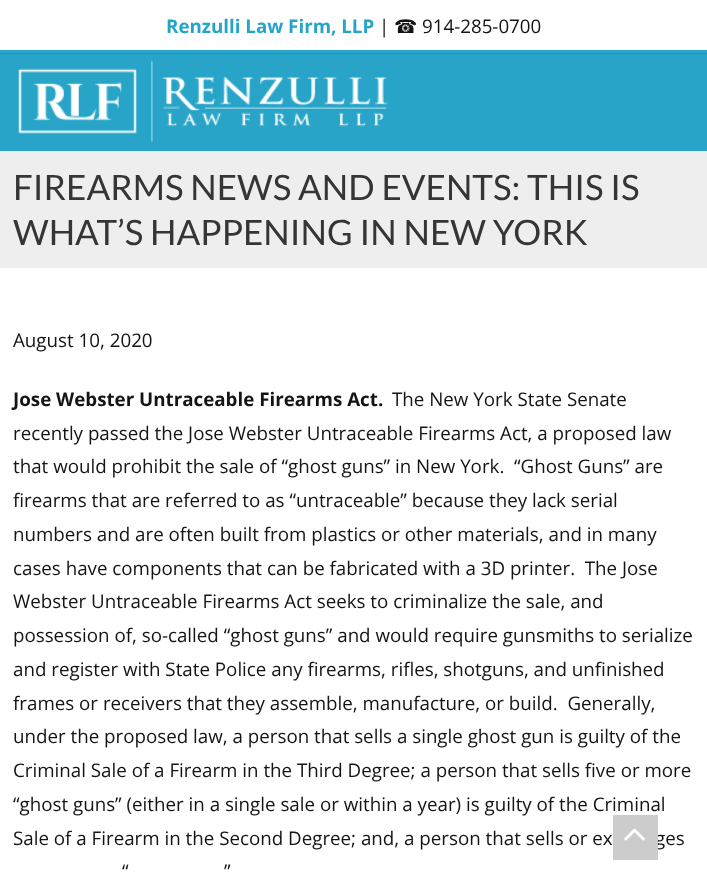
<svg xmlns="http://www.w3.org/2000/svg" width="707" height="872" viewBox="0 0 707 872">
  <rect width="100%" height="100%" fill="#fff"/>
  <path d="M0 50h707v3H0z" fill="#27a4c8"/>
  <path d="M0 54h707v97H0z" fill="#27a4c8"/>
  <path d="M0 53h707v1H0z" fill="#3b8aa3"/>
  <image x="18" y="60" width="370" height="83" href="img/1.png"/>
  <path d="M0 151h707v117H0z" fill="#eee"/>
  <text x="166" y="33" font-family="Open Sans" font-size="18.75" font-weight="bold" fill="#25a4c8">Renzulli Law Firm, LLP</text>
  <text x="379" y="33" font-family="Open Sans" font-size="18.75" fill="#141414">|</text>
  <text x="394" y="33" font-family="DejaVu Sans" font-size="18.75" fill="#141414">☎</text>
  <text x="422" y="33" font-family="Open Sans" font-size="18.75" fill="#141414">914-285-0700</text>
  <g font-family="Lato" font-size="35" fill="#353535">
    <text x="13" y="200">FIREARMS NEWS AND EVENTS: THIS IS</text>
    <text x="13" y="245">WHAT’S HAPPENING IN NEW YORK</text>
  </g>
  <text x="13" y="347" font-family="Open Sans" font-size="18.75" fill="#141414">August 10, 2020</text>
  <text x="13" y="406" font-family="Open Sans" font-size="18.75" font-weight="bold" fill="#141414">Jose Webster Untraceable Firearms Act.</text>
  <g font-family="Open Sans" font-size="18.75" fill="#141414">
    <text x="392" y="406">The New York State Senate</text>
    <text x="13" y="440">recently passed the Jose Webster Untraceable Firearms Act, a proposed law</text>
    <text x="13" y="473" xml:space="preserve">that would prohibit the sale of “ghost guns” in New York.  “Ghost Guns” are</text>
    <text x="13" y="507">firearms that are referred to as “untraceable” because they lack serial</text>
    <text x="13" y="541">numbers and are often built from plastics or other materials, and in many</text>
    <text x="13" y="575" xml:space="preserve">cases have components that can be fabricated with a 3D printer.  The Jose</text>
    <text x="13" y="608">Webster Untraceable Firearms Act seeks to criminalize the sale, and</text>
    <text x="13" y="642">possession of, so-called “ghost guns” and would require gunsmiths to serialize</text>
    <text x="13" y="676">and register with State Police any firearms, rifles, shotguns, and unfinished</text>
    <text x="13" y="710" xml:space="preserve">frames or receivers that they assemble, manufacture, or build.  Generally,</text>
    <text x="13" y="743">under the proposed law, a person that sells a single ghost gun is guilty of the</text>
    <text x="13" y="777">Criminal Sale of a Firearm in the Third Degree; a person that sells five or more</text>
    <text x="13" y="811">“ghost guns” (either in a single sale or within a year) is guilty of the Criminal</text>
    <text x="13" y="845">Sale of a Firearm in the Second Degree; and, a person that sells or ex</text>
    <text x="655" y="845">ges</text>
    <text x="122" y="878">“</text>
    <text x="224" y="878">”</text>
  </g>
  <path d="M613 815h45v45H613z" fill="#ccc"/>
  <image x="624" y="828" width="21" height="13" href="img/2.png"/>
</svg>
